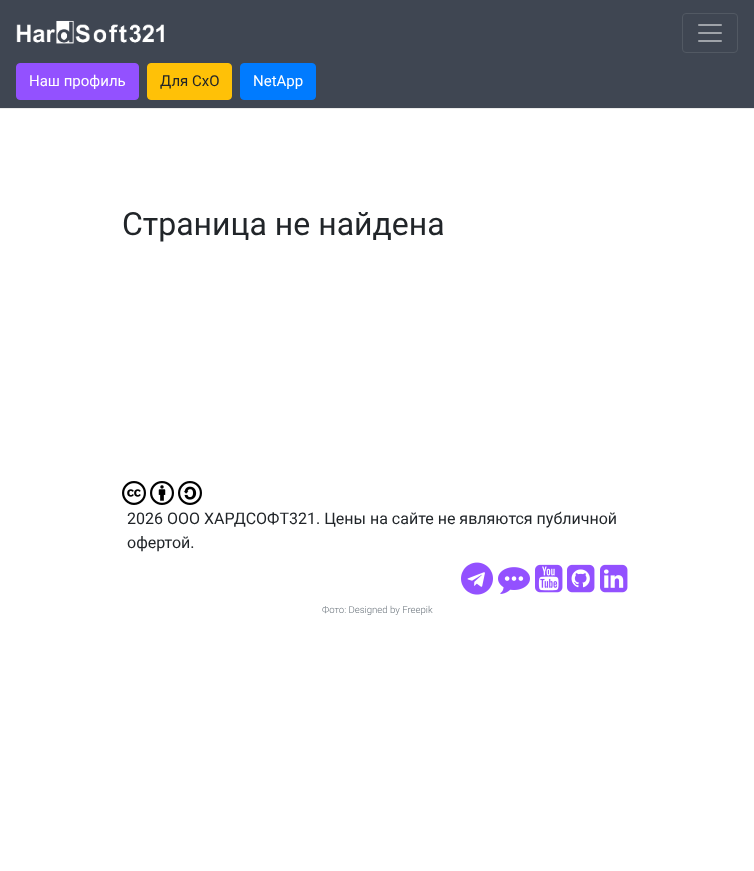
<svg xmlns="http://www.w3.org/2000/svg" width="754" height="871" viewBox="0 0 754 871">
  <rect width="100%" height="100%" fill="#fff"/>
  <path d="M0 0h754v108H0z" fill="#3f4652"/>
  <path d="M0 108h754v1H0z" fill="#ebebeb"/>
  <image x="16" y="20" width="148" height="24" href="img/1.png"/>
  <rect x="682.5" y="13.5" width="55" height="39" rx="3.5" fill="none" stroke="#525963"/>
  <image x="698" y="24" width="24" height="18" href="img/2.png"/>
  <rect x="16.5" y="63.5" width="122" height="36" rx="3.5" fill="#9351ff" stroke="#9351ff"/>
  <rect x="147.5" y="63.5" width="84" height="36" rx="3.5" fill="#ffc107" stroke="#ffc107"/>
  <rect x="240.5" y="63.5" width="75" height="36" rx="3.5" fill="#007bff" stroke="#007bff"/>
  <image x="122" y="481" width="24" height="24" href="img/3.png"/>
  <image x="150" y="481" width="24" height="24" href="img/4.png"/>
  <image x="178" y="481" width="24" height="24" href="img/5.png"/>
  <image x="461" y="562" width="32" height="33" href="img/6.png"/>
  <image x="498" y="567" width="32" height="27" href="img/7.png"/>
  <image x="535" y="564" width="28" height="29" href="img/8.png"/>
  <image x="567" y="564" width="28" height="29" href="img/9.png"/>
  <image x="600" y="564" width="28" height="29" href="img/10.png"/>
  <text x="29" y="86" font-family="Roboto" font-size="15" fill="#fff">Наш профиль</text>
  <text x="160" y="86" font-family="Roboto" font-size="15" fill="#212529">Для СхО</text>
  <text x="253" y="86" font-family="Roboto" font-size="15" fill="#fff">NetApp</text>
  <text x="122" y="235" font-family="Roboto" font-size="32" fill="#212529">Страница не найдена</text>
  <g font-family="Roboto" font-size="16" fill="#212529">
    <text x="127" y="524">2026 ООО ХАРДСОФТ321. Цены на сайте не являются публичной</text>
    <text x="127" y="548">офертой.</text>
  </g>
  <text x="322" y="613" font-family="Roboto" font-size="9.6" font-weight="300" fill="#6c757d">Фото: Designed by Freepik</text>
</svg>
